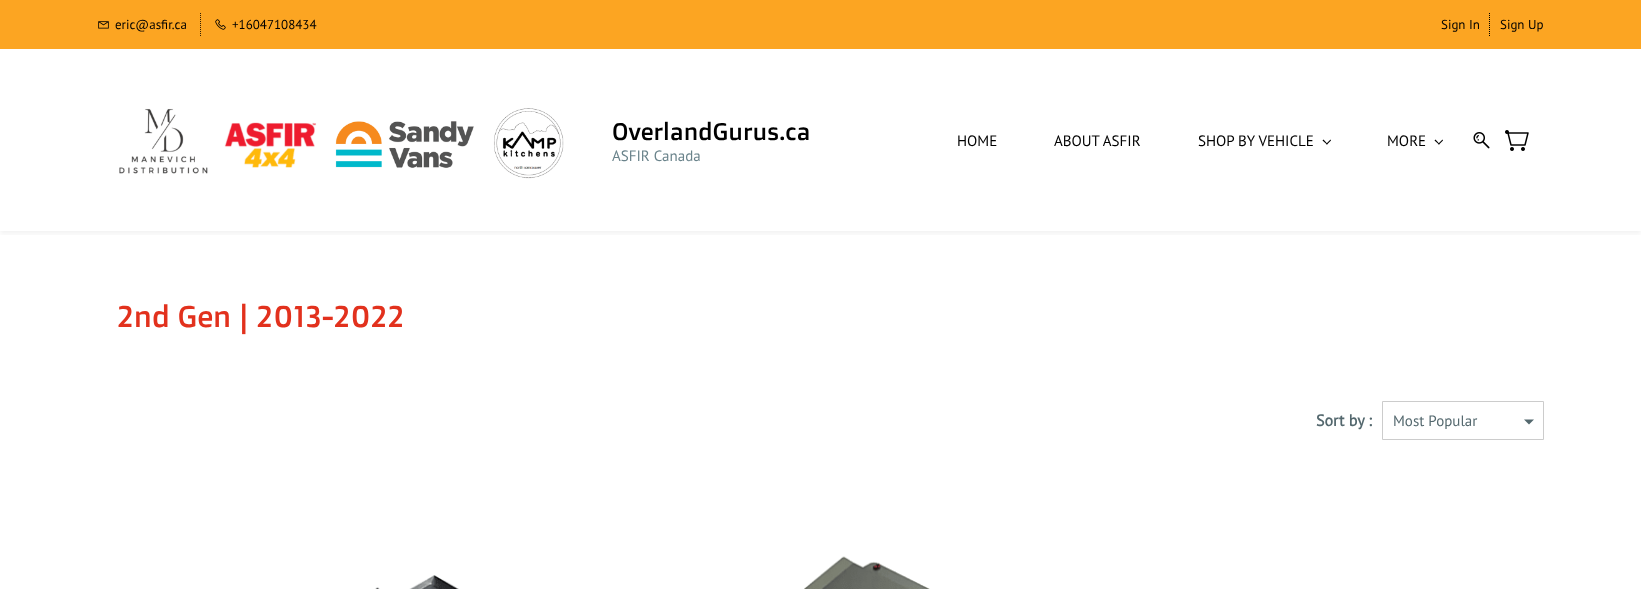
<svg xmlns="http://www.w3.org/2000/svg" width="1641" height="589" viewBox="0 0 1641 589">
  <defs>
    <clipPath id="clip1"><path d="M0 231h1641v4H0z"/></clipPath>
  </defs>
  <rect width="100%" height="100%" fill="#fff"/>
  <g clip-path="url(#clip1)">
    <path d="M0 3h1641v231H0z" fill="#0000000d" filter="blur(2.5px)"/>
  </g>
  <path d="M0 0h1641v49H0z" fill="#fca522"/>
  <image x="98" y="21" width="11" height="8" href="img/1.png"/>
  <path d="M200.5 13V36" fill="none" stroke="#322107" stroke-dasharray="1 1"/>
  <image x="215" y="19" width="11" height="11" href="img/2.png"/>
  <path d="M1489.5 13V36" fill="none" stroke="#000" stroke-dasharray="1 1"/>
  <image x="119" y="108" width="445" height="71" href="img/3.png"/>
  <path d="M1331 140.5L1327 144.5L1326 144L1330.5 139.5Z" fill="#000"/>
  <path d="M1327.5 144L1327 144.5L1322.5 140.5L1323.5 139.5Z" fill="#000"/>
  <path d="M1443 140.5L1439 144.5L1438 144L1442.5 139.5Z" fill="#000"/>
  <path d="M1439.5 144L1439 144.5L1434.5 140.5L1435.5 139.5Z" fill="#000"/>
  <image x="1473" y="132" width="17" height="17" href="img/4.png"/>
  <image x="1505" y="130" width="24" height="21" href="img/5.png"/>
  <path d="M1382.5 401.5h161v38H1382.5z" fill="none" stroke="#ccc"/>
  <path d="M1524 419.5H1534L1529 424.5Z" fill="#54686e"/>
  <image x="375" y="575" width="84" height="14" href="img/6.png"/>
  <image x="804" y="556" width="126" height="33" href="img/7.png"/>
  <g font-family="PT Sans" font-size="13" fill="#000">
    <text x="115" y="29">eric@asfir.ca</text>
    <text x="232" y="29">+16047108434</text>
    <text x="1441" y="29">Sign In</text>
    <text x="1500" y="29">Sign Up</text>
  </g>
  <text x="612" y="140" font-family="Doppio One" font-size="24" fill="#000">OverlandGurus.ca</text>
  <text x="612" y="161" font-family="PT Sans" font-size="15" fill="#6a838b">ASFIR Canada</text>
  <g font-family="PT Sans" font-size="15" fill="#000">
    <text x="957" y="146">HOME</text>
    <text x="1054" y="146">ABOUT ASFIR</text>
    <text x="1198" y="146">SHOP BY VEHICLE</text>
    <text x="1387" y="146">MORE</text>
  </g>
  <text x="117" y="327" font-family="Doppio One" font-size="30" fill="#e2311d">2nd Gen | 2013-2022</text>
  <text x="1316" y="426" font-family="PT Sans" font-size="16" font-weight="bold" fill="#54686e">Sort by :</text>
  <text x="1393" y="426" font-family="PT Sans" font-size="15" fill="#54686e">Most Popular</text>
</svg>
